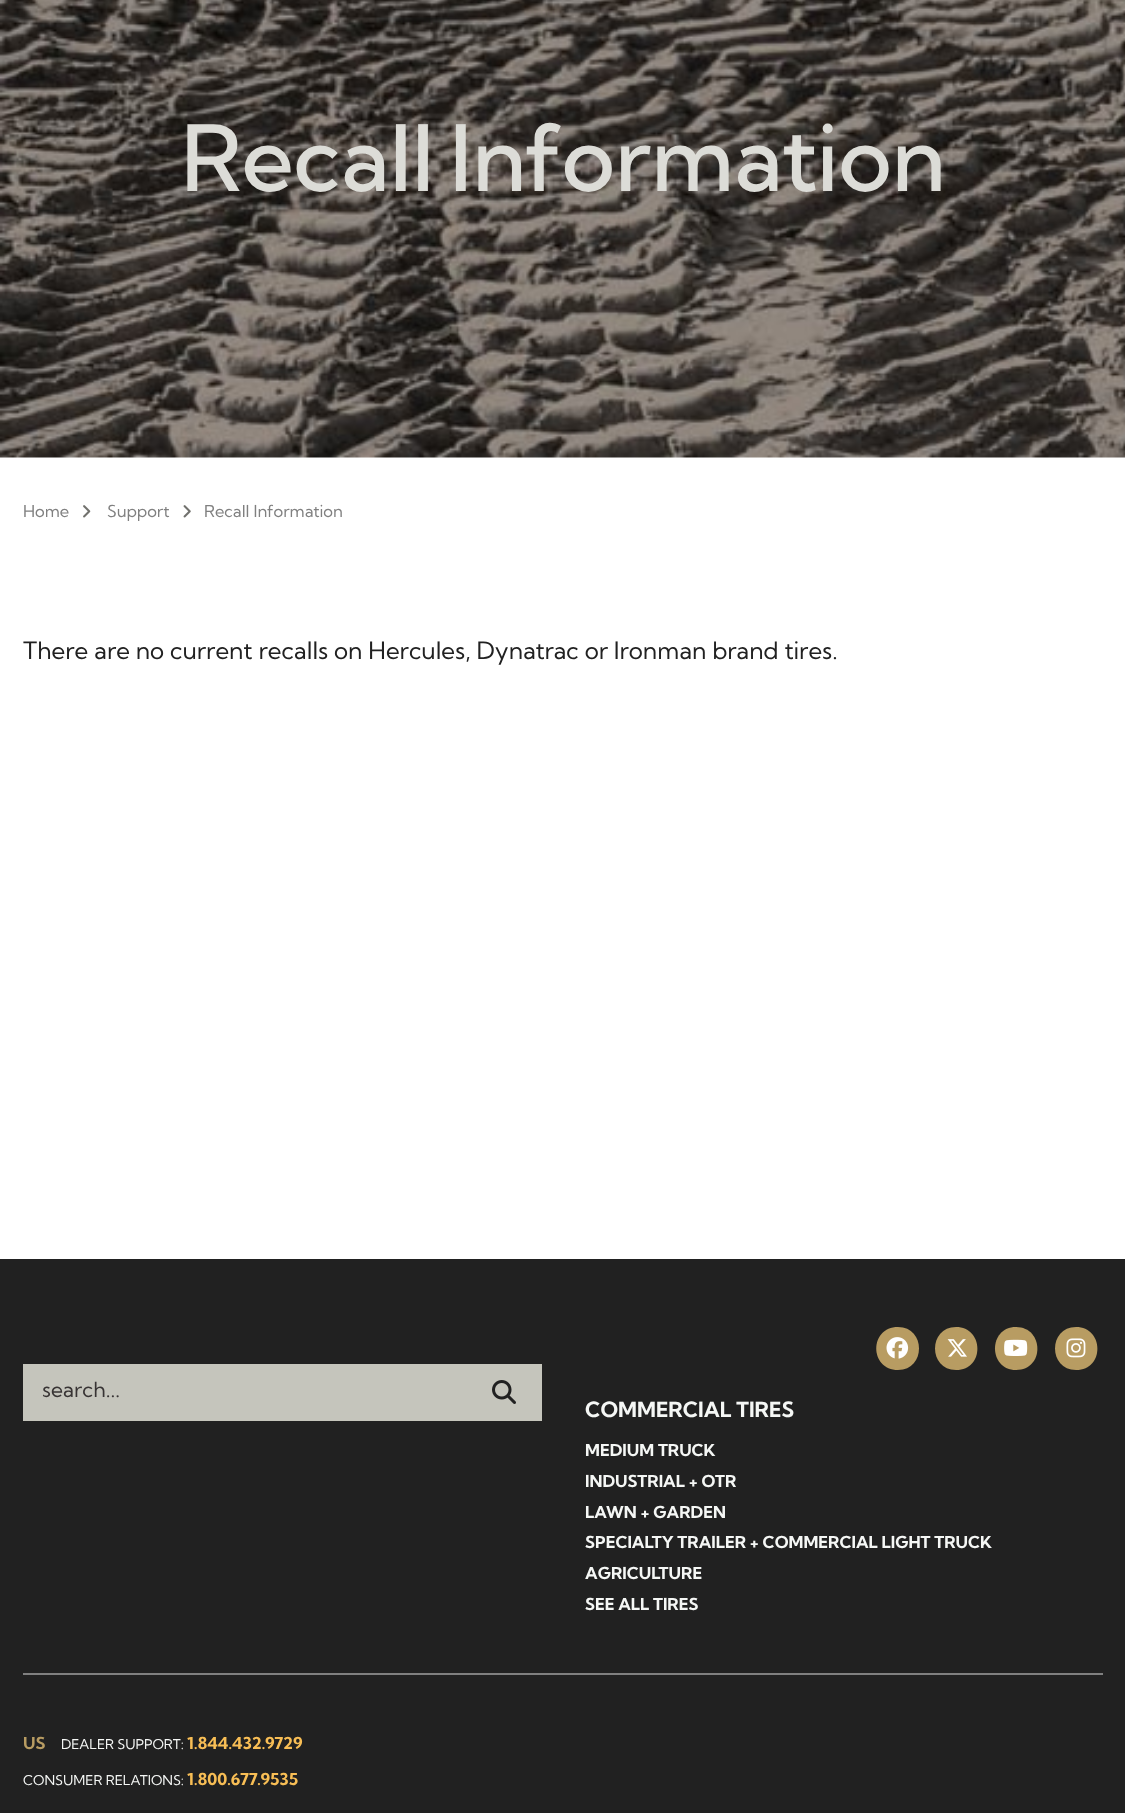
<svg xmlns="http://www.w3.org/2000/svg" width="1125" height="1813" viewBox="0 0 1125 1813">
  <rect width="100%" height="100%" fill="#fff"/>
  <image x="0" y="0" width="1125" height="458" href="img/1.png"/>
  <image x="83" y="505" width="8" height="13" href="img/2.png"/>
  <image x="183" y="505" width="8" height="13" href="img/3.png"/>
  <path d="M0 1259h1125v554H0z" fill="#212121"/>
  <path d="M23 1364h519v57H23z" fill="#c5c5bc"/>
  <image x="492" y="1380" width="24" height="24" href="img/4.png"/>
  <path d="M898 1370C926 1370 926 1327 898 1327C869 1327 869 1370 898 1370Z" fill="#b89c62"/>
  <image x="886" y="1337" width="23" height="22" href="img/5.png"/>
  <path d="M956 1370C985 1370 984 1327 956 1327C928 1327 928 1370 956 1370Z" fill="#b89c62"/>
  <image x="947" y="1339" width="20" height="18" href="img/6.png"/>
  <path d="M1016 1370C1045 1370 1044 1327 1016 1327C988 1327 988 1370 1016 1370Z" fill="#b89c62"/>
  <image x="1004" y="1339" width="24" height="17" href="img/7.png"/>
  <path d="M1076 1370C1105 1370 1104 1327 1076 1327C1048 1327 1048 1370 1076 1370Z" fill="#b89c62"/>
  <image x="1066" y="1338" width="20" height="20" href="img/8.png"/>
  <path d="M23 1673h1080v2H23z" fill="#808080"/>
  <text x="181" y="191" word-spacing="-6" font-family="Kumbh Sans" font-size="91.25" font-weight="500" letter-spacing="-0.25" fill="#dcdcd7">Recall Information</text>
  <g font-family="Kumbh Sans" font-size="16.5" fill="#808080">
    <text x="23" y="517">Home</text>
    <text x="107" y="517">Support</text>
    <text x="204" y="517">Recall Information</text>
  </g>
  <text x="23" y="659" font-family="Kumbh Sans" font-size="24" fill="#212121">There are no current recalls on Hercules, Dynatrac or Ironman brand tires.</text>
  <text x="42" y="1397" font-family="Kumbh Sans" font-size="21" fill="#383434">search...</text>
  <text x="585" y="1417" font-family="Kumbh Sans" font-size="21" font-weight="bold" fill="#f5f7f5">COMMERCIAL TIRES</text>
  <g font-family="Kumbh Sans" font-size="16.5" font-weight="bold" fill="#f5f7f5">
    <text x="585" y="1456">MEDIUM TRUCK</text>
    <text x="585" y="1487">INDUSTRIAL + OTR</text>
    <text x="585" y="1518">LAWN + GARDEN</text>
    <text x="585" y="1548">SPECIALTY TRAILER + COMMERCIAL LIGHT TRUCK</text>
    <text x="585" y="1579">AGRICULTURE</text>
    <text x="585" y="1610">SEE ALL TIRES</text>
  </g>
  <text x="23" y="1749" font-family="Kumbh Sans" font-size="16.5" font-weight="bold" fill="#b89c62">US</text>
  <text x="61" y="1749" font-family="Kumbh Sans" font-size="13.5" fill="#f5f7f5">DEALER SUPPORT:</text>
  <text x="187" y="1749" font-family="Kumbh Sans" font-size="16.5" font-weight="bold" fill="#f8be55">1.844.432.9729</text>
  <text x="23" y="1785" font-family="Kumbh Sans" font-size="13.5" fill="#f5f7f5">CONSUMER RELATIONS:</text>
  <text x="187" y="1785" font-family="Kumbh Sans" font-size="16.5" font-weight="bold" fill="#f8be55">1.800.677.9535</text>
</svg>
